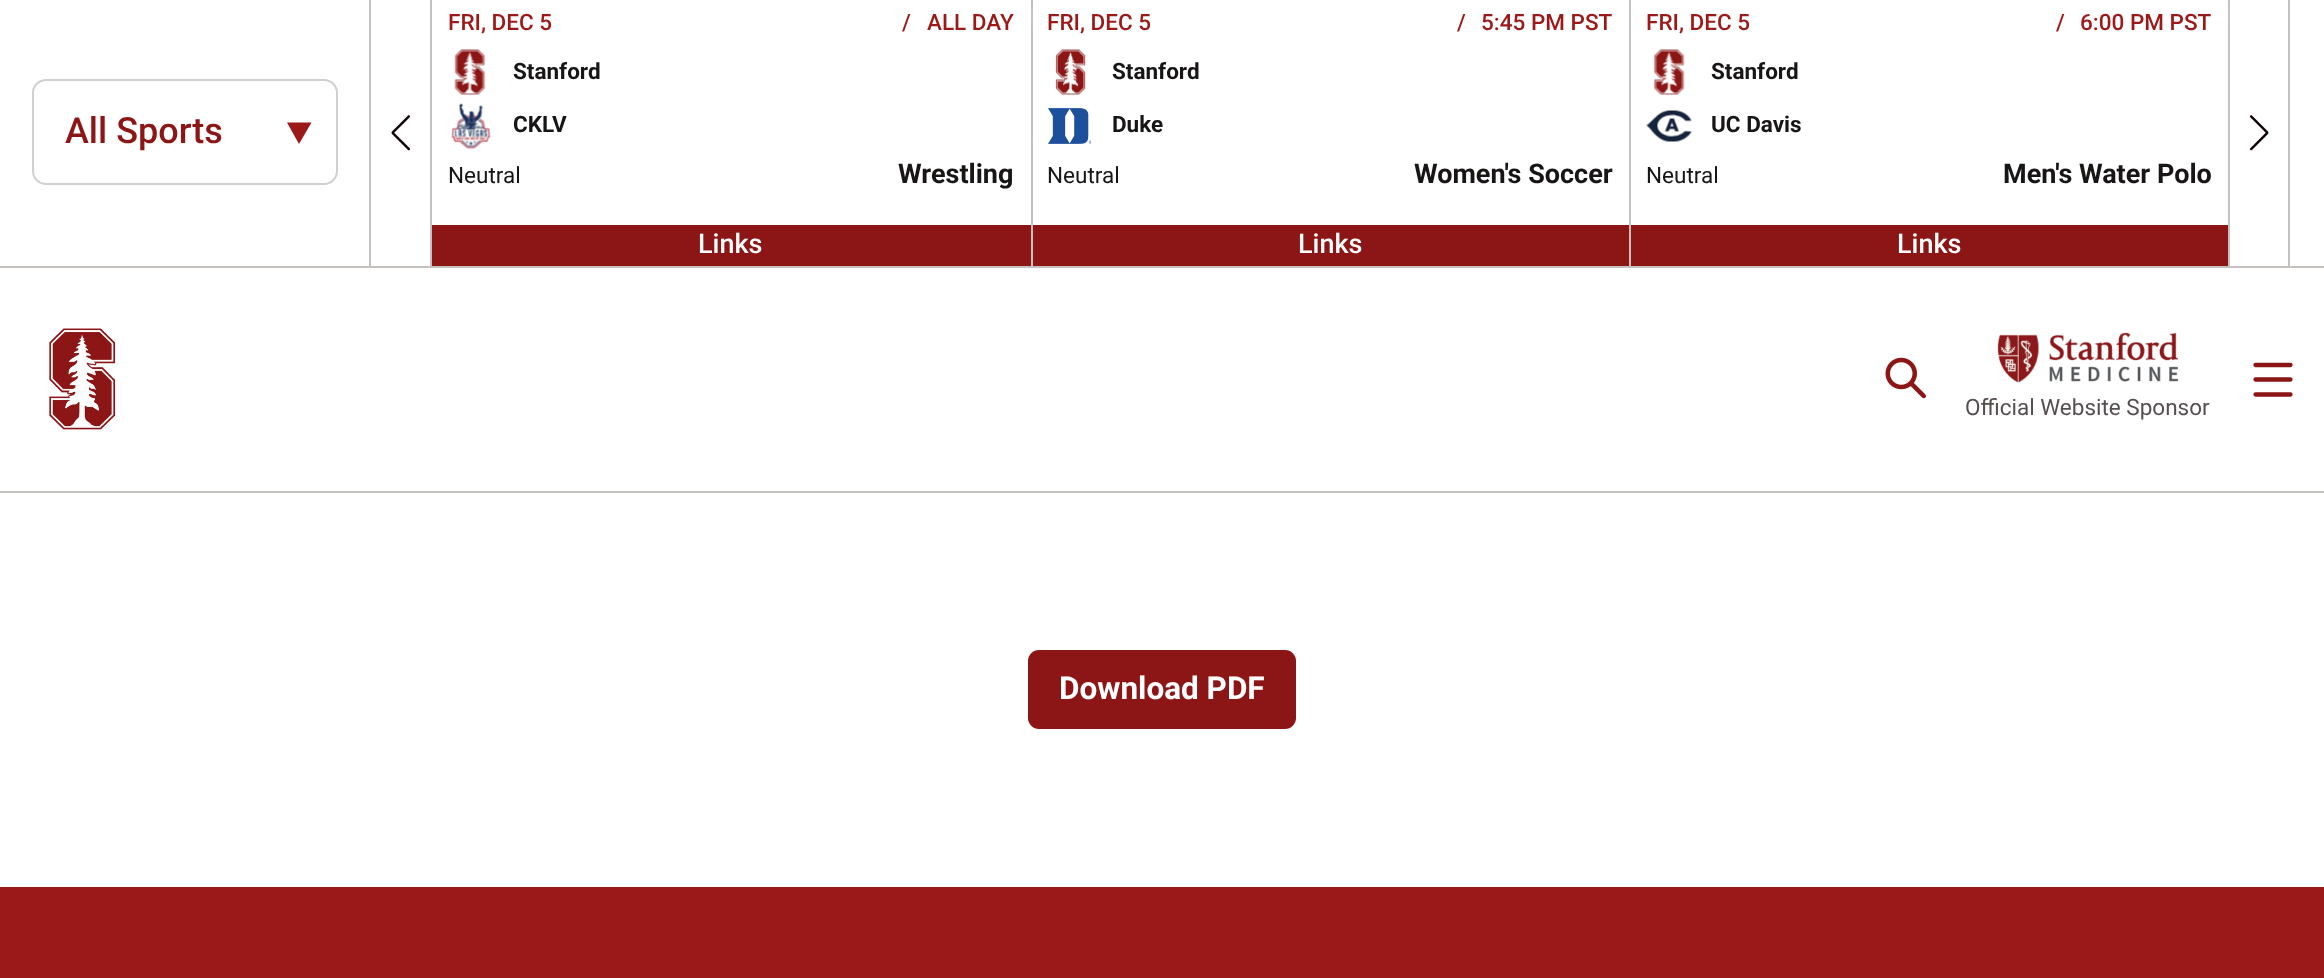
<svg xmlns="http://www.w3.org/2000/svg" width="2324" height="978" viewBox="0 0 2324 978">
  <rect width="100%" height="100%" fill="#fff"/>
  <path d="M0 266h2324v2H0z" fill="#c4c1be"/>
  <path d="M287 122.5H311.5L299 144" fill="#9b1919"/>
  <rect x="33" y="80" width="304" height="104" rx="13" fill="none" stroke="#d1d0d0" stroke-width="2"/>
  <path d="M430 0h2v266H430z" fill="#c4c1be"/>
  <path d="M369 0h2v266H369z" fill="#c4c1be"/>
  <image x="391" y="115" width="19" height="36" href="img/1.png"/>
  <path d="M1031 0h2v266H1031z" fill="#c4c1be"/>
  <image x="454" y="49" width="32" height="46" href="img/2.png"/>
  <image x="451" y="103" width="40" height="46" href="img/3.png"/>
  <path d="M432 225h599v41H432z" fill="#8c1515"/>
  <path d="M1629 0h2v266H1629z" fill="#c4c1be"/>
  <image x="1055" y="49" width="31" height="46" href="img/4.png"/>
  <image x="1048" y="108" width="43" height="36" href="img/5.png"/>
  <path d="M1033 225h596v41H1033z" fill="#8c1515"/>
  <path d="M2228 0h2v266H2228z" fill="#c4c1be"/>
  <image x="1653" y="49" width="32" height="46" href="img/6.png"/>
  <image x="1646" y="110" width="46" height="32" href="img/7.png"/>
  <path d="M1631 225h597v41H1631z" fill="#8c1515"/>
  <path d="M2288 0h2v266H2288z" fill="#c4c1be"/>
  <image x="2249" y="115" width="20" height="36" href="img/8.png"/>
  <path d="M0 491h2324v2H0z" fill="#c4c1be"/>
  <image x="49" y="328" width="67" height="102" href="img/9.png"/>
  <image x="1885" y="357" width="41" height="42" href="img/10.png"/>
  <path d="M2255.5 365H2290.5M2255.5 379.5H2290.5M2290.5 394.5H2255.5" fill="none" stroke="#8c1515" stroke-width="4.3" stroke-linecap="round"/>
  <image x="1997" y="332" width="181" height="51" href="img/11.png"/>
  <rect x="1028" y="650" width="268" height="79" rx="11" fill="#8c1515"/>
  <path d="M0 887h2324v91H0z" fill="#9b1919"/>
  <text x="65" y="143" font-family="Roboto" font-size="36" font-weight="500" fill="#8c1515">All Sports</text>
  <g font-family="Roboto" font-size="22.5" font-weight="500" fill="#9b1919">
    <text x="448" y="30">FRI, DEC 5</text>
    <text x="902" y="30">/</text>
    <text x="927" y="30">ALL DAY</text>
  </g>
  <g font-family="Roboto" font-size="22.5" font-weight="bold" fill="#181515">
    <text x="513" y="79">Stanford</text>
    <text x="513" y="132">CKLV</text>
  </g>
  <text x="448" y="183" font-family="Roboto" font-size="22.5" fill="#181515">Neutral</text>
  <text x="898" y="183" font-family="Roboto" font-size="27" font-weight="bold" fill="#181515">Wrestling</text>
  <text x="698" y="253" font-family="Roboto" font-size="27" font-weight="500" fill="#fff">Links</text>
  <g font-family="Roboto" font-size="22.5" font-weight="500" fill="#9b1919">
    <text x="1047" y="30">FRI, DEC 5</text>
    <text x="1457" y="30">/</text>
    <text x="1481" y="30">5:45 PM PST</text>
  </g>
  <g font-family="Roboto" font-size="22.5" font-weight="bold" fill="#181515">
    <text x="1112" y="79">Stanford</text>
    <text x="1112" y="132">Duke</text>
  </g>
  <text x="1047" y="183" font-family="Roboto" font-size="22.5" fill="#181515">Neutral</text>
  <text x="1414" y="183" font-family="Roboto" font-size="27" font-weight="bold" fill="#181515">Women's Soccer</text>
  <text x="1298" y="253" font-family="Roboto" font-size="27" font-weight="500" fill="#fff">Links</text>
  <g font-family="Roboto" font-size="22.5" font-weight="500" fill="#9b1919">
    <text x="1646" y="30">FRI, DEC 5</text>
    <text x="2056" y="30">/</text>
    <text x="2080" y="30">6:00 PM PST</text>
  </g>
  <g font-family="Roboto" font-size="22.5" font-weight="bold" fill="#181515">
    <text x="1711" y="79">Stanford</text>
    <text x="1711" y="132">UC Davis</text>
  </g>
  <text x="1646" y="183" font-family="Roboto" font-size="22.5" fill="#181515">Neutral</text>
  <text x="2003" y="183" font-family="Roboto" font-size="27" font-weight="bold" fill="#181515">Men's Water Polo</text>
  <text x="1897" y="253" font-family="Roboto" font-size="27" font-weight="500" fill="#fff">Links</text>
  <text x="1965" y="415" font-family="Roboto" font-size="22.5" fill="#564f4f">Official Website Sponsor</text>
  <text x="1059" y="699" font-family="Roboto" font-size="31.5" font-weight="bold" fill="#fff">Download PDF</text>
</svg>
